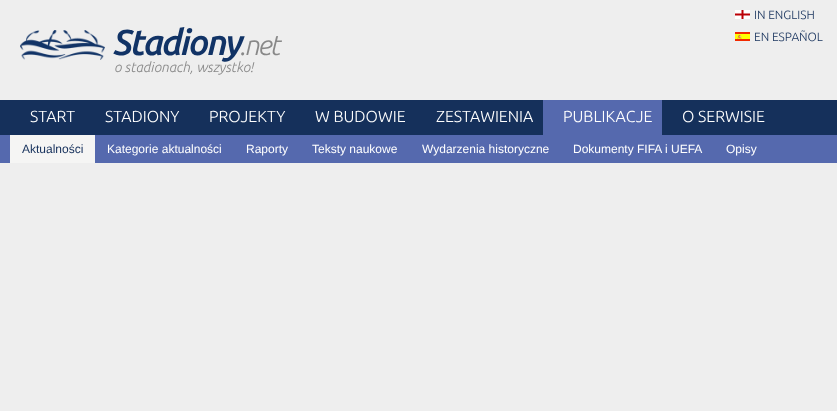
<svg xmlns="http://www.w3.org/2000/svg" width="837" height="411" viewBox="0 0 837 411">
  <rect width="100%" height="100%" fill="#eee"/>
  <image x="20" y="30" width="85" height="30" href="img/1.png"/>
  <image x="735" y="10" width="15" height="9" href="img/2.png"/>
  <image x="735" y="32" width="15" height="9" href="img/3.png"/>
  <path d="M0 100h837v35H0z" fill="#15305b"/>
  <path d="M543 100h119v35H543z" fill="#5569ae"/>
  <path d="M0 135h837v28H0z" fill="#5569ae"/>
  <path d="M10 135h85v28H10z" fill="#f5f5f4"/>
  <text x="112" y="55" font-family="Ubuntu" font-size="36" font-weight="500" font-style="italic" letter-spacing="-1.75" fill="#136">Stadiony</text>
  <text x="239" y="55" font-family="Ubuntu" font-size="28" font-weight="300" font-style="italic" letter-spacing="-1.75" fill="#888">.net</text>
  <text x="114" y="72" font-family="Ubuntu" font-size="14" font-weight="300" font-style="italic" fill="#888">o stadionach, wszystko!</text>
  <g font-family="Ubuntu" font-size="12" font-weight="300" fill="#15305b">
    <text x="754" y="19">IN ENGLISH</text>
    <text x="754" y="41">EN ESPAÑOL</text>
  </g>
  <g font-family="Ubuntu" font-size="16" font-weight="300" fill="#fff">
    <text x="30" y="122">START</text>
    <text x="105" y="122">STADIONY</text>
    <text x="209" y="122">PROJEKTY</text>
    <text x="315" y="122">W BUDOWIE</text>
    <text x="436" y="122">ZESTAWIENIA</text>
    <text x="563" y="122">PUBLIKACJE</text>
    <text x="682" y="122">O SERWISIE</text>
  </g>
  <text x="22" y="153" font-family="Liberation Sans" font-size="12" fill="#15305b">Aktualności</text>
  <g font-family="Liberation Sans" font-size="12" fill="#fff">
    <text x="107" y="153">Kategorie aktualności</text>
    <text x="246" y="153">Raporty</text>
    <text x="312" y="153">Teksty naukowe</text>
    <text x="422" y="153">Wydarzenia historyczne</text>
    <text x="573" y="153">Dokumenty FIFA i UEFA</text>
    <text x="726" y="153">Opisy</text>
  </g>
</svg>
